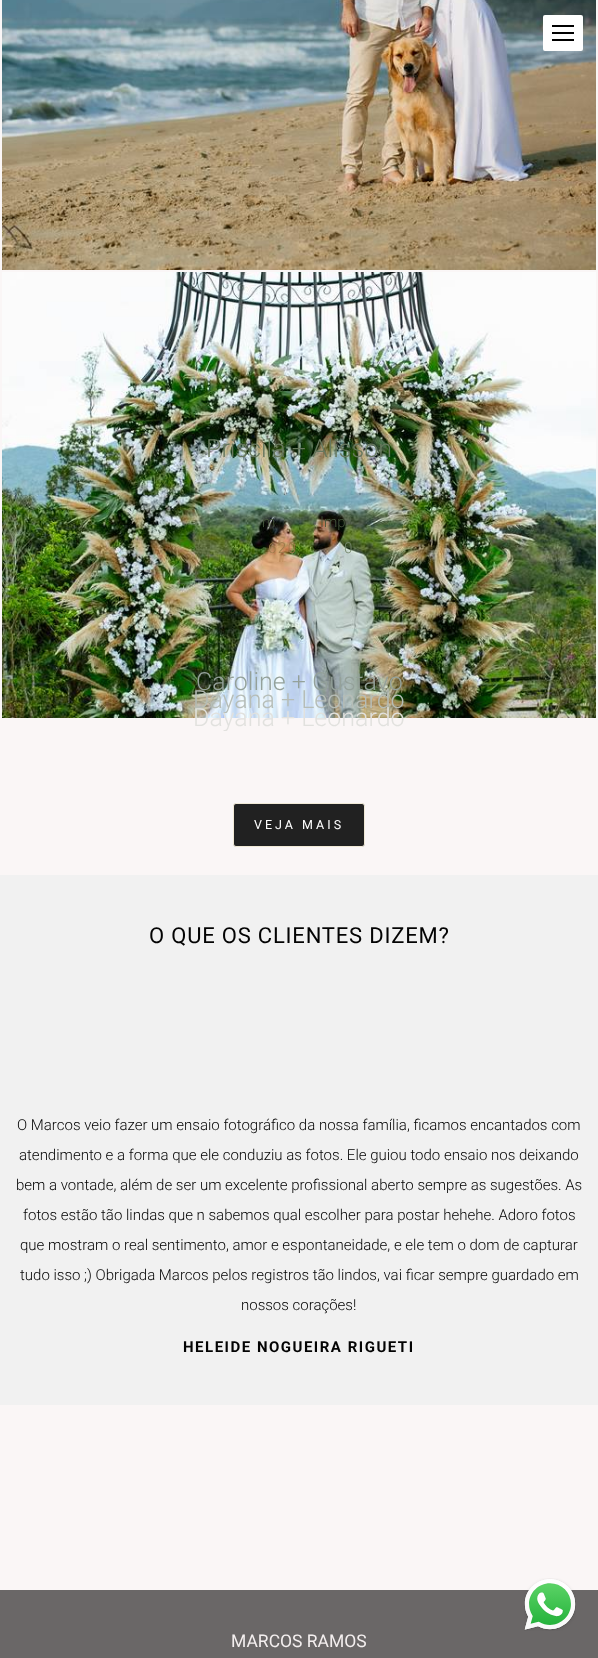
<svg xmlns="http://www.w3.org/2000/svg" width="598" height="1658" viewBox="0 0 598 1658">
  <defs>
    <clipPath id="clip1"><path d="M32 686h534v27H32z"/></clipPath>
    <clipPath id="clip2"><path d="M32 704h534v27H32z"/></clipPath>
  </defs>
  <rect width="100%" height="100%" fill="#faf6f6"/>
  <image x="2" y="0" width="594" height="270" href="img/1.png"/>
  <rect x="543" y="15" width="40" height="36" rx="2" fill="#fff"/>
  <path d="M552 25h22v2H552z" fill="#000"/>
  <path d="M552 32h22v2H552z" fill="#000"/>
  <path d="M552 39h22v2H552z" fill="#000"/>
  <image x="2" y="272" width="594" height="446" href="img/2.png"/>
  <rect x="233.5" y="803.5" width="131" height="43" rx="2.5" fill="#212121" stroke="#f0e9d6"/>
  <path d="M0 875h598v530H0z" fill="#f1f1f1"/>
  <path d="M0 1590h598v68H0z" fill="#6a6767"/>
  <image x="524" y="1578" width="52" height="53" href="img/3.png"/>
  <text x="206" y="457" font-family="Roboto" font-size="25" font-weight="300" fill="#67785e">Priscila + Alisson</text>
  <g font-family="Roboto" font-size="15" font-weight="300" fill="#46563d">
    <text x="262" y="527">m</text>
    <text x="320" y="527">Imp</text>
  </g>
  <text x="268" y="553" font-family="Roboto" font-size="15" font-weight="300" letter-spacing="1.5" fill="#9b7a4a">620</text>
  <text x="344" y="553" font-family="Roboto" font-size="15" font-weight="300" letter-spacing="1.5" fill="#77896e">0</text>
  <text x="196" y="690" font-family="Roboto" font-size="25" font-weight="300" fill="#94a19a">Caroline + Gustavo</text>
  <g clip-path="url(#clip1)">
    <text x="193" y="708" font-family="Roboto" font-size="25" font-weight="300" fill="#b6bdb7">Dayana + Leonardo</text>
  </g>
  <g clip-path="url(#clip2)">
    <text x="193" y="726" font-family="Roboto" font-size="25" font-weight="300" fill="#e1e1de">Dayana + Leonardo</text>
  </g>
  <text x="254" y="829" font-family="Roboto" font-size="12.5" letter-spacing="3" fill="#fff">VEJA MAIS</text>
  <text x="149" y="943" font-family="Roboto" font-size="22" letter-spacing="0.8" fill="#030303">O QUE OS CLIENTES DIZEM?</text>
  <g font-family="Roboto" font-size="15" font-weight="300" fill="#030303">
    <text x="17" y="1130">O Marcos veio fazer um ensaio fotográfico da nossa família, ficamos encantados com</text>
    <text x="19" y="1160">atendimento e a forma que ele conduziu as fotos. Ele guiou todo ensaio nos deixando</text>
    <text x="16" y="1190">bem a vontade, além de ser um excelente profissional aberto sempre as sugestões. As</text>
    <text x="23" y="1220">fotos estão tão lindas que n sabemos qual escolher para postar hehehe. Adoro fotos</text>
    <text x="20" y="1250">que mostram o real sentimento, amor e espontaneidade, e ele tem o dom de capturar</text>
    <text x="20" y="1280">tudo isso ;) Obrigada Marcos pelos registros tão lindos, vai ficar sempre guardado em</text>
    <text x="241" y="1310">nossos corações!</text>
  </g>
  <text x="183" y="1352" font-family="Roboto" font-size="15" font-weight="bold" letter-spacing="1.5" fill="#030303">HELEIDE NOGUEIRA RIGUETI</text>
  <text x="231" y="1647" font-family="Roboto" font-size="17.5" fill="#f4efef">MARCOS RAMOS</text>
</svg>
